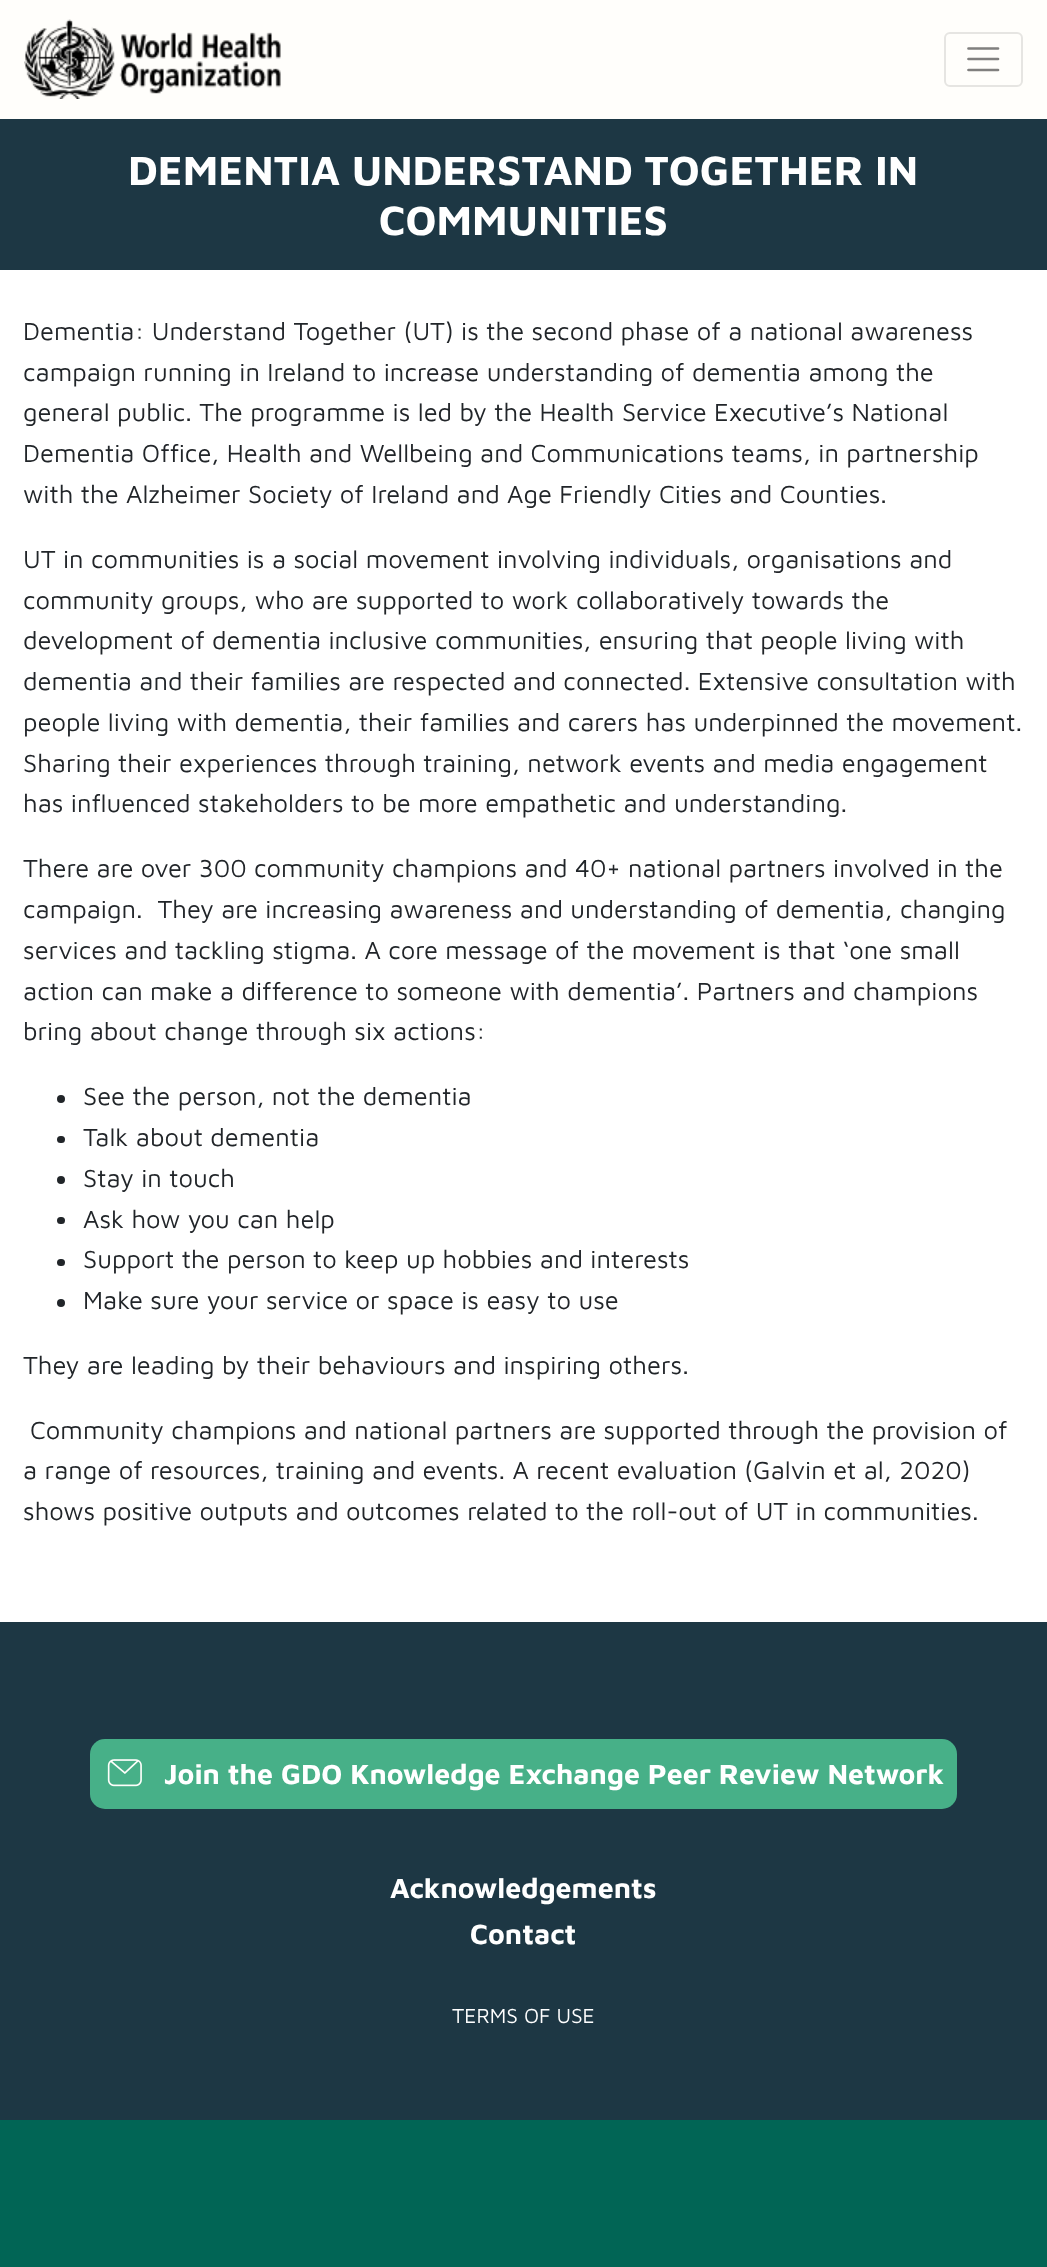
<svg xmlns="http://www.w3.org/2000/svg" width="1047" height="2267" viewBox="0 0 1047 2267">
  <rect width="100%" height="100%" fill="#016555"/>
  <path d="M0 0h1047v119H0z" fill="#fffefb"/>
  <image x="24" y="19" width="257" height="80" href="img/1.png"/>
  <rect x="945" y="33" width="77" height="53" rx="5" fill="none" stroke="#e6e5e2" stroke-width="2"/>
  <path d="M968.5 48.5H998M968.5 59H998M968.5 70H998" fill="none" stroke="#807f7e" stroke-width="2.7" stroke-linecap="round"/>
  <path d="M0 270h1047v1352H0z" fill="#fff"/>
  <path d="M0 119h1047v151H0z" fill="#1d3744"/>
  <circle cx="61" cy="1099" r="4" fill="#212529"/>
  <rect x="57" y="1136" width="8" height="7" rx="3.5" fill="#212529"/>
  <circle cx="61" cy="1180" r="4" fill="#212529"/>
  <rect x="57" y="1217" width="8" height="7" rx="3.5" fill="#212529"/>
  <rect x="57" y="1259" width="8" height="7" rx="3.5" fill="#212529"/>
  <circle cx="61" cy="1303" r="4" fill="#212529"/>
  <path d="M0 1622h1047v498H0z" fill="#1d3744"/>
  <rect x="90" y="1739" width="867" height="70" rx="15" fill="#47b088"/>
  <image x="107" y="1759" width="35" height="28" href="img/2.png"/>
  <g font-family="Maven Pro" font-size="42" font-weight="bold" fill="#fff">
    <text x="128" y="185">DEMENTIA UNDERSTAND TOGETHER IN</text>
    <text x="379" y="235">COMMUNITIES</text>
  </g>
  <g font-family="Maven Pro" font-size="25.5" fill="#212529">
    <text x="23" y="340">Dementia: Understand Together (UT) is the second phase of a national awareness</text>
    <text x="23" y="381">campaign running in Ireland to increase understanding of dementia among the</text>
    <text x="23" y="421">general public. The programme is led by the Health Service Executive’s National</text>
    <text x="23" y="462">Dementia Office, Health and Wellbeing and Communications teams, in partnership</text>
    <text x="23" y="503">with the Alzheimer Society of Ireland and Age Friendly Cities and Counties.</text>
    <text x="23" y="568">UT in communities is a social movement involving individuals, organisations and</text>
    <text x="23" y="609">community groups, who are supported to work collaboratively towards the</text>
    <text x="23" y="649">development of dementia inclusive communities, ensuring that people living with</text>
    <text x="23" y="690">dementia and their families are respected and connected. Extensive consultation with</text>
    <text x="23" y="731">people living with dementia, their families and carers has underpinned the movement.</text>
    <text x="23" y="772">Sharing their experiences through training, network events and media engagement</text>
    <text x="23" y="812">has influenced stakeholders to be more empathetic and understanding.</text>
    <text x="23" y="877">There are over 300 community champions and 40+ national partners involved in the</text>
    <text x="23" y="918" xml:space="preserve">campaign.  They are increasing awareness and understanding of dementia, changing</text>
    <text x="23" y="959">services and tackling stigma. A core message of the movement is that ‘one small</text>
    <text x="23" y="1000">action can make a difference to someone with dementia’. Partners and champions</text>
    <text x="23" y="1040">bring about change through six actions:</text>
    <text x="83" y="1105">See the person, not the dementia</text>
    <text x="83" y="1146">Talk about dementia</text>
    <text x="83" y="1187">Stay in touch</text>
    <text x="83" y="1228">Ask how you can help</text>
    <text x="83" y="1268">Support the person to keep up hobbies and interests</text>
    <text x="83" y="1309">Make sure your service or space is easy to use</text>
    <text x="23" y="1374">They are leading by their behaviours and inspiring others.</text>
    <text x="30" y="1439">Community champions and national partners are supported through the provision of</text>
    <text x="23" y="1479">a range of resources, training and events. A recent evaluation (Galvin et al, 2020)</text>
    <text x="23" y="1520">shows positive outputs and outcomes related to the roll-out of UT in communities.</text>
  </g>
  <g font-family="Maven Pro" font-size="28.5" font-weight="bold" fill="#fff">
    <text x="164" y="1784">Join the GDO Knowledge Exchange Peer Review Network</text>
    <text x="390" y="1898">Acknowledgements</text>
    <text x="470" y="1944">Contact</text>
  </g>
  <text x="452" y="2023" font-family="Maven Pro" font-size="21" fill="#fff">TERMS OF USE</text>
</svg>
